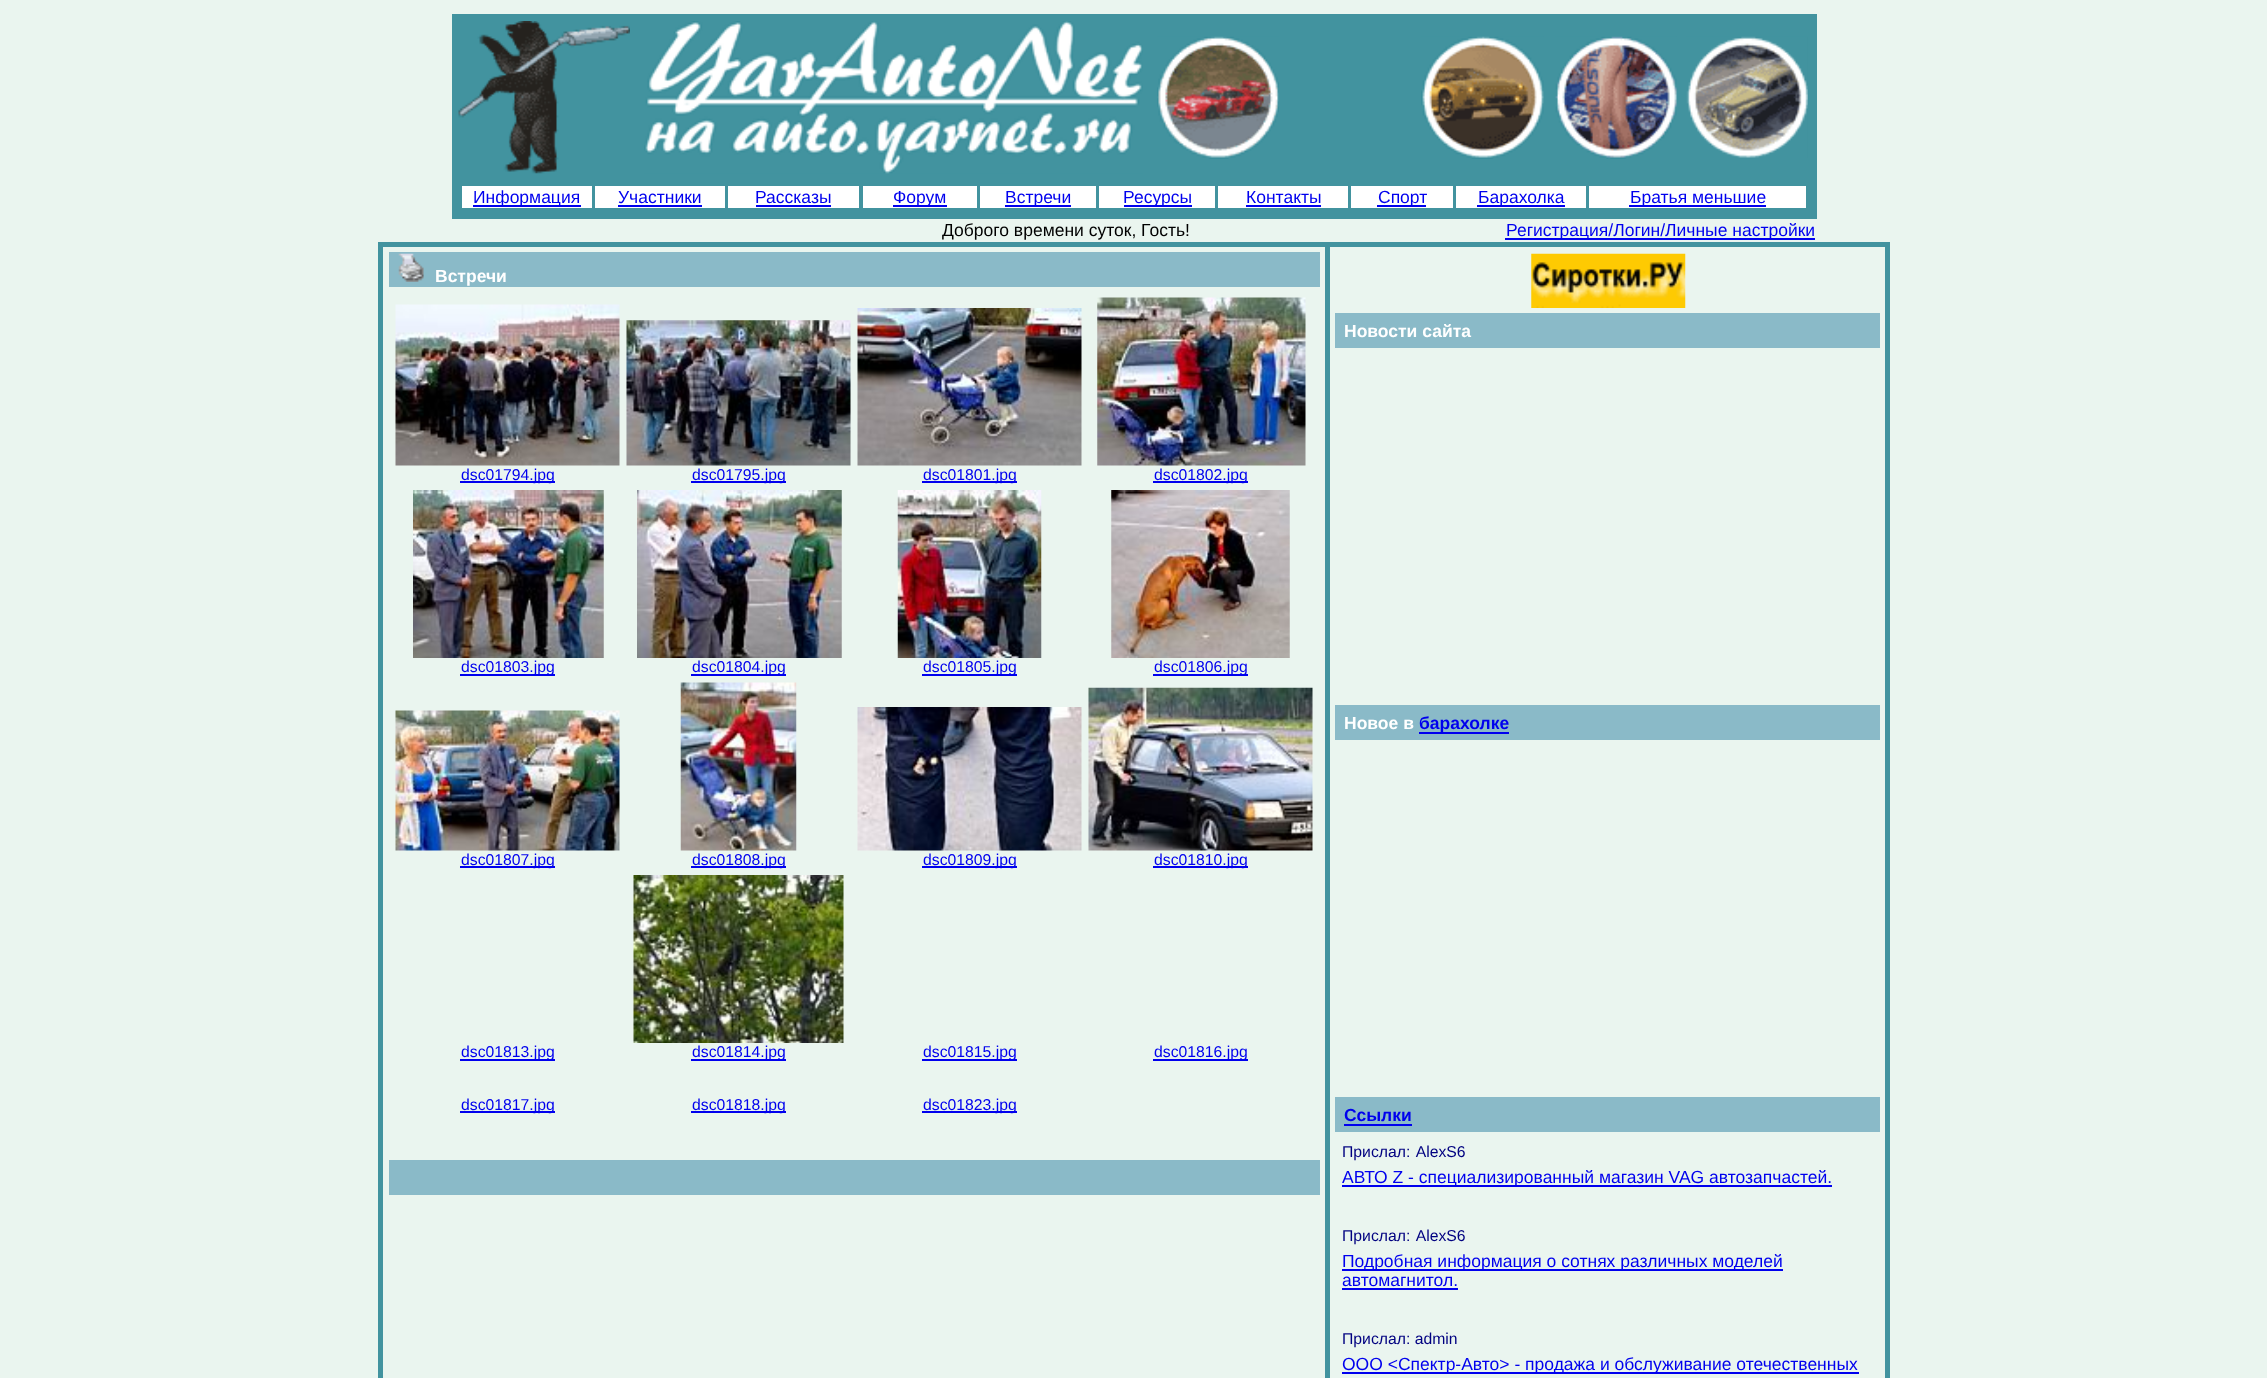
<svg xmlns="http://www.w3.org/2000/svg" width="2267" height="1378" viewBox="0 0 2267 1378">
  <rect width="100%" height="100%" fill="#eaf5ef"/>
  <path d="M452 14h1365v205H452z" fill="#42939f"/>
  <image x="458" y="21" width="172" height="153" href="img/1.png"/>
  <image x="644" y="21" width="499" height="153" href="img/2.png"/>
  <image x="1157" y="36" width="122" height="123" href="img/3.png"/>
  <image x="1421" y="36" width="123" height="123" href="img/4.png"/>
  <image x="1555" y="36" width="122" height="123" href="img/5.png"/>
  <image x="1686" y="36" width="122" height="122" href="img/6.png"/>
  <path d="M462 186h130v22H462z" fill="#fff"/>
  <path d="M473 205h108v2H473z" fill="#00e"/>
  <path d="M595 186h130v22H595z" fill="#fff"/>
  <path d="M618 205h84v2H618z" fill="#00e"/>
  <path d="M728 186h131v22H728z" fill="#fff"/>
  <path d="M756 205h75v2H756z" fill="#00e"/>
  <path d="M863 186h114v22H863z" fill="#fff"/>
  <path d="M893 205h54v2H893z" fill="#00e"/>
  <path d="M980 186h116v22H980z" fill="#fff"/>
  <path d="M1005 205h66v2H1005z" fill="#00e"/>
  <path d="M1099 186h116v22H1099z" fill="#fff"/>
  <path d="M1124 205h68v2H1124z" fill="#00e"/>
  <path d="M1218 186h130v22H1218z" fill="#fff"/>
  <path d="M1246 205h75v2H1246z" fill="#00e"/>
  <path d="M1351 186h102v22H1351z" fill="#fff"/>
  <path d="M1377 205h49v2H1377z" fill="#00e"/>
  <path d="M1456 186h130v22H1456z" fill="#fff"/>
  <path d="M1477 205h88v2H1477z" fill="#00e"/>
  <path d="M1589 186h217v22H1589z" fill="#fff"/>
  <path d="M1629 205h137v2H1629z" fill="#00e"/>
  <path d="M1505 238h310v2H1505z" fill="#00e"/>
  <path d="M378 242h1512v1136H378z" fill="#42939f"/>
  <path d="M383 247h942v1131H383z" fill="#eaf5ef"/>
  <path d="M389 252h931v35H389z" fill="#8abac8"/>
  <image x="398" y="253" width="26" height="29" href="img/7.png"/>
  <image x="395" y="304" width="225" height="162" href="img/8.png"/>
  <path d="M460 481h95v2H460z" fill="#00e"/>
  <image x="626" y="320" width="225" height="146" href="img/9.png"/>
  <path d="M691 481h95v2H691z" fill="#00e"/>
  <image x="857" y="308" width="225" height="158" href="img/10.png"/>
  <path d="M922 481h95v2H922z" fill="#00e"/>
  <image x="1097" y="297" width="209" height="169" href="img/11.png"/>
  <path d="M1153 481h95v2H1153z" fill="#00e"/>
  <image x="413" y="490" width="191" height="168" href="img/12.png"/>
  <path d="M460 674h95v2H460z" fill="#00e"/>
  <image x="637" y="490" width="205" height="168" href="img/13.png"/>
  <path d="M691 674h95v2H691z" fill="#00e"/>
  <image x="897" y="490" width="145" height="168" href="img/14.png"/>
  <path d="M922 674h95v2H922z" fill="#00e"/>
  <image x="1111" y="490" width="179" height="168" href="img/15.png"/>
  <path d="M1153 674h95v2H1153z" fill="#00e"/>
  <image x="395" y="710" width="225" height="141" href="img/16.png"/>
  <path d="M460 866h95v2H460z" fill="#00e"/>
  <image x="680" y="682" width="117" height="169" href="img/17.png"/>
  <path d="M691 866h95v2H691z" fill="#00e"/>
  <image x="857" y="707" width="225" height="144" href="img/18.png"/>
  <path d="M922 866h95v2H922z" fill="#00e"/>
  <image x="1088" y="687" width="225" height="164" href="img/19.png"/>
  <path d="M1153 866h95v2H1153z" fill="#00e"/>
  <path d="M460 1059h95v2H460z" fill="#00e"/>
  <image x="633" y="875" width="211" height="168" href="img/20.png"/>
  <path d="M691 1059h95v2H691z" fill="#00e"/>
  <path d="M922 1059h95v2H922z" fill="#00e"/>
  <path d="M1153 1059h95v2H1153z" fill="#00e"/>
  <path d="M460 1111h95v2H460z" fill="#00e"/>
  <path d="M691 1111h95v2H691z" fill="#00e"/>
  <path d="M922 1111h95v2H922z" fill="#00e"/>
  <path d="M389 1160h931v35H389z" fill="#8abac8"/>
  <path d="M1330 247h555v1131H1330z" fill="#eaf5ef"/>
  <image x="1531" y="253" width="155" height="55" href="img/21.png"/>
  <path d="M1335 313h545v35H1335z" fill="#8abac8"/>
  <path d="M1335 705h545v35H1335z" fill="#8abac8"/>
  <path d="M1419 732h90v2H1419z" fill="#00e"/>
  <path d="M1335 1097h545v35H1335z" fill="#8abac8"/>
  <path d="M1344 1124h68v2H1344z" fill="#00e"/>
  <path d="M1342 1185h490v2H1342z" fill="#00e"/>
  <path d="M1342 1269h441v2H1342z" fill="#00e"/>
  <path d="M1342 1288h116v2H1342z" fill="#00e"/>
  <path d="M1342 1372h517v2H1342z" fill="#00e"/>
  <g font-family="Liberation Sans" font-size="17.5" fill="#00e">
    <text x="473" y="203">Информация</text>
    <text x="618" y="203">Участники</text>
    <text x="755" y="203">Рассказы</text>
    <text x="893" y="203">Форум</text>
    <text x="1005" y="203">Встречи</text>
    <text x="1123" y="203">Ресурсы</text>
    <text x="1246" y="203">Контакты</text>
    <text x="1378" y="203">Спорт</text>
    <text x="1478" y="203">Барахолка</text>
    <text x="1630" y="203">Братья меньшие</text>
  </g>
  <text x="942" y="236" font-family="Liberation Sans" font-size="17.5" fill="#000">Доброго времени суток, Гость!</text>
  <text x="1506" y="236" font-family="Liberation Sans" font-size="17.5" fill="#00e">Регистрация/Логин/Личные настройки</text>
  <text x="435" y="282" font-family="Liberation Sans" font-size="17.5" font-weight="bold" fill="#fff">Встречи</text>
  <g font-family="Liberation Sans" font-size="15.75" fill="#00e">
    <text x="461" y="480">dsc01794.jpg</text>
    <text x="692" y="480">dsc01795.jpg</text>
    <text x="923" y="480">dsc01801.jpg</text>
    <text x="1154" y="480">dsc01802.jpg</text>
    <text x="461" y="672">dsc01803.jpg</text>
    <text x="692" y="672">dsc01804.jpg</text>
    <text x="923" y="672">dsc01805.jpg</text>
    <text x="1154" y="672">dsc01806.jpg</text>
    <text x="461" y="865">dsc01807.jpg</text>
    <text x="692" y="865">dsc01808.jpg</text>
    <text x="923" y="865">dsc01809.jpg</text>
    <text x="1154" y="865">dsc01810.jpg</text>
    <text x="461" y="1057">dsc01813.jpg</text>
    <text x="692" y="1057">dsc01814.jpg</text>
    <text x="923" y="1057">dsc01815.jpg</text>
    <text x="1154" y="1057">dsc01816.jpg</text>
    <text x="461" y="1110">dsc01817.jpg</text>
    <text x="692" y="1110">dsc01818.jpg</text>
    <text x="923" y="1110">dsc01823.jpg</text>
  </g>
  <g font-family="Liberation Sans" font-size="17.5" font-weight="bold" fill="#fff">
    <text x="1344" y="337">Новости сайта</text>
    <text x="1344" y="729">Новое в</text>
  </g>
  <g font-family="Liberation Sans" font-size="17.5" font-weight="bold" fill="#00e">
    <text x="1419" y="729">барахолке</text>
    <text x="1344" y="1121">Ссылки</text>
  </g>
  <text x="1342" y="1157" word-spacing="1" font-family="Liberation Sans" font-size="15.75" fill="#000080">Прислал: AlexS6</text>
  <text x="1342" y="1183" font-family="Liberation Sans" font-size="17.5" fill="#00e">АВТО Z - специализированный магазин VAG автозапчастей.</text>
  <text x="1342" y="1241" word-spacing="1" font-family="Liberation Sans" font-size="15.75" fill="#000080">Прислал: AlexS6</text>
  <g font-family="Liberation Sans" font-size="17.5" fill="#00e">
    <text x="1342" y="1267">Подробная информация о сотнях различных моделей</text>
    <text x="1342" y="1286">автомагнитол.</text>
  </g>
  <text x="1342" y="1344" font-family="Liberation Sans" font-size="15.75" fill="#000080">Прислал: admin</text>
  <text x="1342" y="1370" font-family="Liberation Sans" font-size="17.5" fill="#00e">ООО &lt;Спектр-Авто&gt; - продажа и обслуживание отечественных</text>
</svg>
